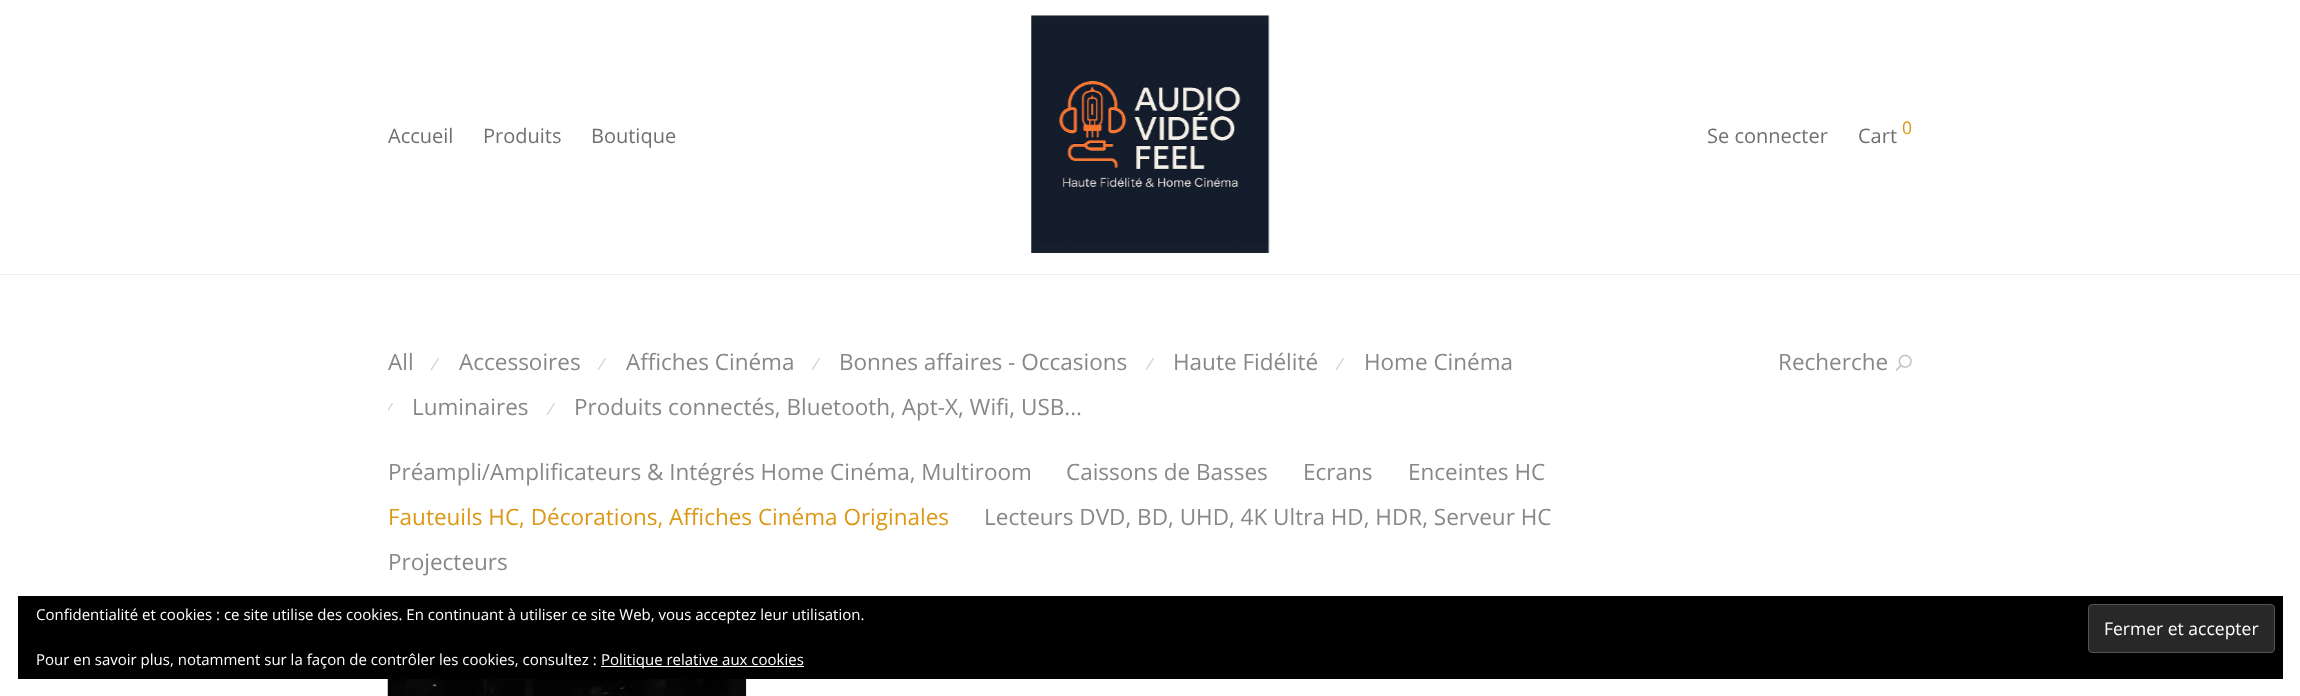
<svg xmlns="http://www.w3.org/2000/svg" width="2300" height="696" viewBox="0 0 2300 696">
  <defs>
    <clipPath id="clip1"><path d="M388 339h1220v245H388z"/></clipPath>
  </defs>
  <rect width="100%" height="100%" fill="#fff"/>
  <path d="M0 274h2300v1H0z" fill="#eee"/>
  <image x="1031" y="15" width="239" height="238" href="img/1.png"/>
  <image x="1895" y="354" width="17" height="17" href="img/2.png"/>
  <image x="387" y="679" width="360" height="17" href="img/3.png"/>
  <path d="M18 596h2265v83H18z" fill="#000"/>
  <rect x="2088.5" y="604.5" width="186" height="48" rx="3.5" fill="#282828" stroke="#535353"/>
  <path d="M601 666h203v1H601z" fill="#fff"/>
  <g font-family="Open Sans" font-size="20" fill="#707070">
    <text x="388" y="143">Accueil</text>
    <text x="483" y="143">Produits</text>
    <text x="591" y="143">Boutique</text>
    <text x="1707" y="143">Se connecter</text>
    <text x="1858" y="143">Cart</text>
  </g>
  <text x="1902" y="134" font-family="Open Sans" font-size="17.5" fill="#dc9814">0</text>
  <text x="388" y="370" font-family="Open Sans" font-size="22.5" fill="#888">All</text>
  <text x="434" y="370" font-family="Liberation Sans" font-size="17.5" fill="#ccc">⁄</text>
  <text x="459" y="370" font-family="Open Sans" font-size="22.5" fill="#888">Accessoires</text>
  <text x="601" y="370" font-family="Liberation Sans" font-size="17.5" fill="#ccc">⁄</text>
  <text x="626" y="370" font-family="Open Sans" font-size="22.5" fill="#888">Affiches Cinéma</text>
  <text x="815" y="370" font-family="Liberation Sans" font-size="17.5" fill="#ccc">⁄</text>
  <text x="839" y="370" font-family="Open Sans" font-size="22.5" fill="#888">Bonnes affaires - Occasions</text>
  <text x="1149" y="370" font-family="Liberation Sans" font-size="17.5" fill="#ccc">⁄</text>
  <text x="1173" y="370" font-family="Open Sans" font-size="22.5" fill="#888">Haute Fidélité</text>
  <text x="1339" y="370" font-family="Liberation Sans" font-size="17.5" fill="#ccc">⁄</text>
  <text x="1364" y="370" font-family="Open Sans" font-size="22.5" fill="#888">Home Cinéma</text>
  <g clip-path="url(#clip1)">
    <text x="388" y="415" font-family="Liberation Sans" font-size="17.5" fill="#ccc">⁄</text>
  </g>
  <text x="412" y="415" font-family="Open Sans" font-size="22.5" fill="#888">Luminaires</text>
  <text x="550" y="415" font-family="Liberation Sans" font-size="17.5" fill="#ccc">⁄</text>
  <g font-family="Open Sans" font-size="22.5" fill="#888">
    <text x="574" y="415">Produits connectés, Bluetooth, Apt-X, Wifi, USB...</text>
    <text x="388" y="480">Préampli/Amplificateurs &amp; Intégrés Home Cinéma, Multiroom</text>
    <text x="1066" y="480">Caissons de Basses</text>
    <text x="1303" y="480">Ecrans</text>
    <text x="1408" y="480">Enceintes HC</text>
  </g>
  <text x="388" y="525" font-family="Open Sans" font-size="22.5" fill="#dc9814">Fauteuils HC, Décorations, Affiches Cinéma Originales</text>
  <g font-family="Open Sans" font-size="22.5" fill="#888">
    <text x="984" y="525">Lecteurs DVD, BD, UHD, 4K Ultra HD, HDR, Serveur HC</text>
    <text x="388" y="570">Projecteurs</text>
    <text x="1778" y="370">Recherche</text>
  </g>
  <text x="36" y="620" font-family="Open Sans" font-size="15" fill="#fff">Confidentialité et cookies : ce site utilise des cookies. En continuant à utiliser ce site Web, vous acceptez leur utilisation.</text>
  <text x="2104" y="635" font-family="Open Sans" font-size="17.5" fill="#fff">Fermer et accepter</text>
  <g font-family="Open Sans" font-size="15" fill="#fff">
    <text x="36" y="665">Pour en savoir plus, notamment sur la façon de contrôler les cookies, consultez :</text>
    <text x="601" y="665">Politique relative aux cookies</text>
  </g>
</svg>
